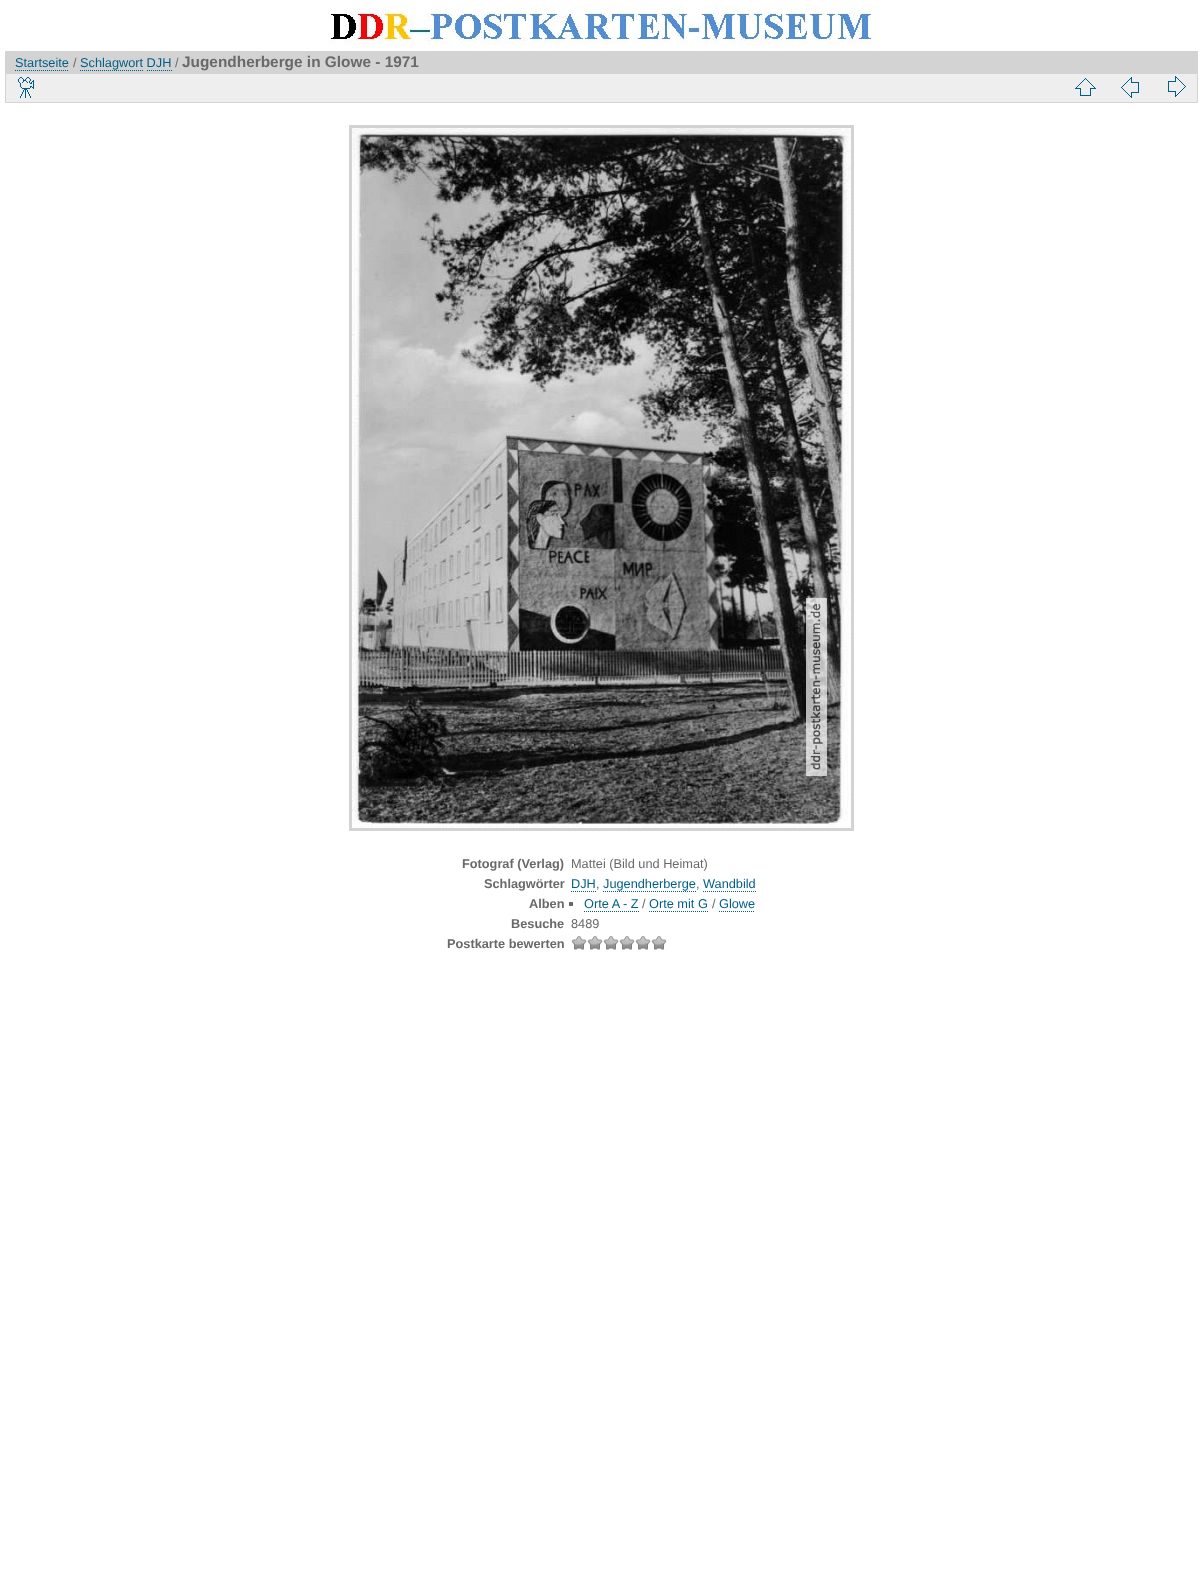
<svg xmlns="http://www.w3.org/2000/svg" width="1203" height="1585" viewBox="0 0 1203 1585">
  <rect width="100%" height="100%" fill="#fff"/>
  <image x="328" y="5" width="552" height="43" href="img/1.png"/>
  <path d="M5 51h1193v22H5z" fill="#d3d3d3"/>
  <path d="M15 70.5H69" fill="none" stroke="#005e89" stroke-dasharray="1 1"/>
  <path d="M80 70.5H143" fill="none" stroke="#005e89" stroke-dasharray="1 1"/>
  <path d="M147 70.5H172" fill="none" stroke="#005e89" stroke-dasharray="1 1"/>
  <path d="M5.5 73.5h1192v29H5.5z" fill="#eee" stroke="#d3d3d3"/>
  <image x="18" y="77" width="16" height="21" href="img/2.png"/>
  <image x="1075" y="78" width="21" height="18" href="img/3.png"/>
  <image x="1121" y="77" width="18" height="21" href="img/4.png"/>
  <image x="1168" y="76" width="18" height="21" href="img/5.png"/>
  <path d="M350.5 126.5h502v703H350.5z" fill="none" stroke="#d3d3d3" stroke-width="3"/>
  <image x="352" y="128" width="499" height="700" href="img/6.png"/>
  <path d="M571 891.5H596" fill="none" stroke="#005e89" stroke-dasharray="1 1"/>
  <path d="M603 891.5H696" fill="none" stroke="#005e89" stroke-dasharray="1 1"/>
  <path d="M703 891.5H756" fill="none" stroke="#005e89" stroke-dasharray="1 1"/>
  <path d="M569 902h4v4H569z" fill="#696969"/>
  <path d="M584 911.5H639" fill="none" stroke="#005e89" stroke-dasharray="1 1"/>
  <path d="M649 911.5H708" fill="none" stroke="#005e89" stroke-dasharray="1 1"/>
  <path d="M719 911.5H755" fill="none" stroke="#005e89" stroke-dasharray="1 1"/>
  <image x="571" y="936" width="16" height="14" href="img/7.png"/>
  <image x="587" y="936" width="16" height="14" href="img/7.png"/>
  <image x="603" y="936" width="16" height="14" href="img/7.png"/>
  <image x="619" y="936" width="16" height="14" href="img/7.png"/>
  <image x="635" y="936" width="16" height="14" href="img/7.png"/>
  <image x="651" y="936" width="16" height="14" href="img/7.png"/>
  <text x="15" y="67" font-family="Liberation Sans" font-size="12.75" fill="#005e89">Startseite</text>
  <text x="73" y="67" font-family="Liberation Sans" font-size="12.75" fill="#696969">/</text>
  <text x="80" y="67" font-family="Liberation Sans" font-size="12.75" fill="#005e89">Schlagwort DJH</text>
  <text x="175" y="67" font-family="Liberation Sans" font-size="12.75" fill="#696969">/</text>
  <text x="182" y="67" font-family="Liberation Sans" font-size="15.4" font-weight="bold" fill="#696969">Jugendherberge in Glowe - 1971</text>
  <text x="462" y="868" font-family="Liberation Sans" font-size="12.75" font-weight="bold" fill="#696969">Fotograf (Verlag)</text>
  <text x="571" y="868" font-family="Liberation Sans" font-size="12.75" fill="#696969">Mattei (Bild und Heimat)</text>
  <text x="484" y="888" font-family="Liberation Sans" font-size="12.75" font-weight="bold" fill="#696969">Schlagwörter</text>
  <text x="571" y="888" font-family="Liberation Sans" font-size="12.75" fill="#005e89">DJH</text>
  <text x="596" y="888" font-family="Liberation Sans" font-size="12.75" fill="#696969">,</text>
  <text x="603" y="888" font-family="Liberation Sans" font-size="12.75" fill="#005e89">Jugendherberge</text>
  <text x="696" y="888" font-family="Liberation Sans" font-size="12.75" fill="#696969">,</text>
  <text x="703" y="888" font-family="Liberation Sans" font-size="12.75" fill="#005e89">Wandbild</text>
  <text x="529" y="908" font-family="Liberation Sans" font-size="12.75" font-weight="bold" fill="#696969">Alben</text>
  <text x="584" y="908" font-family="Liberation Sans" font-size="12.75" fill="#005e89">Orte A - Z</text>
  <text x="642" y="908" font-family="Liberation Sans" font-size="12.75" fill="#696969">/</text>
  <text x="649" y="908" font-family="Liberation Sans" font-size="12.75" fill="#005e89">Orte mit G</text>
  <text x="712" y="908" font-family="Liberation Sans" font-size="12.75" fill="#696969">/</text>
  <text x="719" y="908" font-family="Liberation Sans" font-size="12.75" fill="#005e89">Glowe</text>
  <text x="511" y="928" font-family="Liberation Sans" font-size="12.75" font-weight="bold" fill="#696969">Besuche</text>
  <text x="571" y="928" font-family="Liberation Sans" font-size="12.75" fill="#696969">8489</text>
  <text x="447" y="948" font-family="Liberation Sans" font-size="12.75" font-weight="bold" fill="#696969">Postkarte bewerten</text>
</svg>
